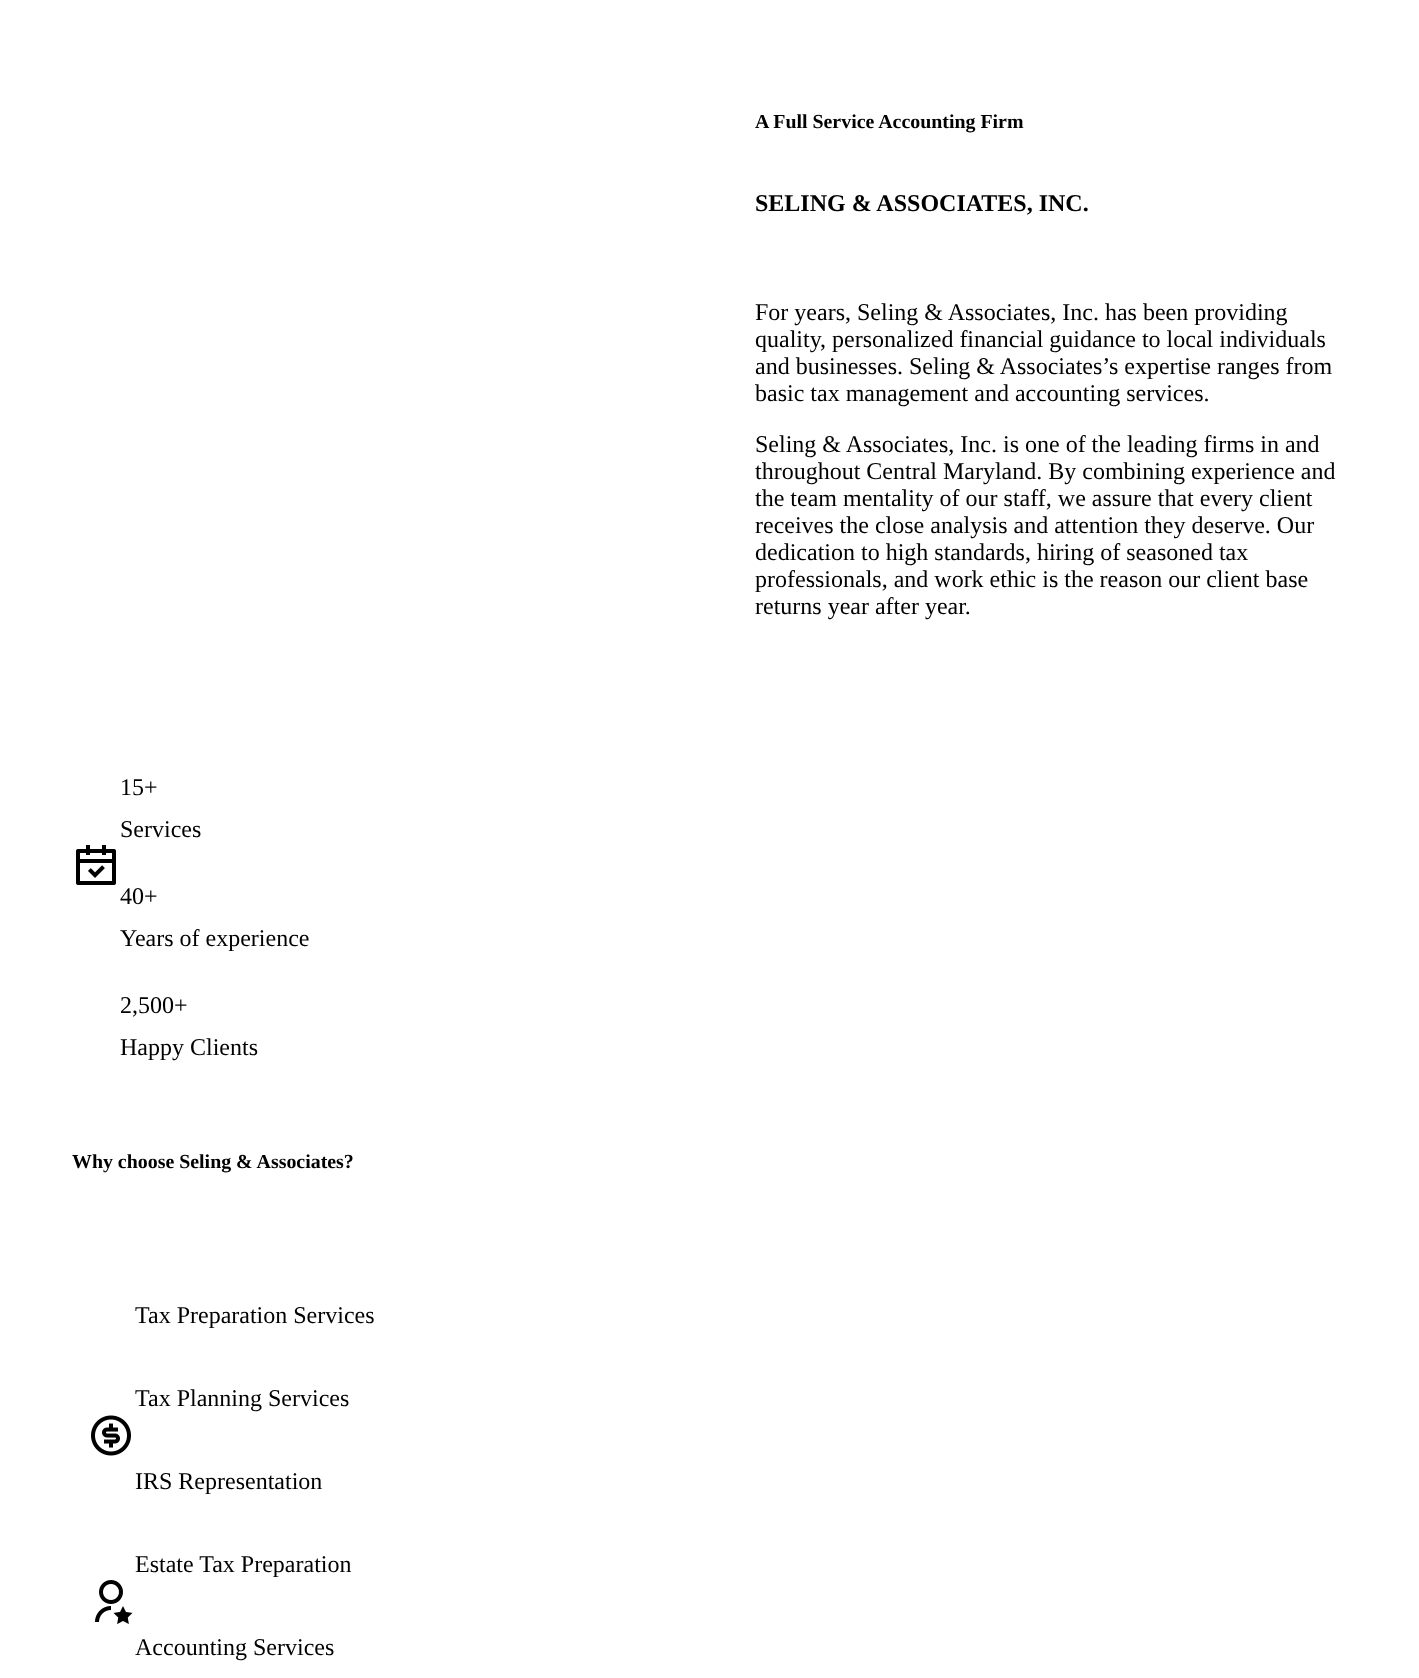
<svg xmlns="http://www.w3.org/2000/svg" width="1419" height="1678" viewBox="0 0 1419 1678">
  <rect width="100%" height="100%" fill="#fff"/>
  <image x="76" y="845" width="40" height="40" href="img/1.png"/>
  <image x="91" y="1415" width="40" height="41" href="img/2.png"/>
  <image x="95" y="1580" width="38" height="44" href="img/3.png"/>
  <text x="755" y="128" font-family="Liberation Serif" font-size="19.9" font-weight="bold" fill="#000">A Full Service Accounting Firm</text>
  <text x="755" y="211" font-family="Liberation Serif" font-size="24" font-weight="bold" fill="#000">SELING &amp; ASSOCIATES, INC.</text>
  <g font-family="Liberation Serif" font-size="24" fill="#000">
    <text x="755" y="320">For years, Seling &amp; Associates, Inc. has been providing</text>
    <text x="755" y="347">quality, personalized financial guidance to local individuals</text>
    <text x="755" y="374">and businesses. Seling &amp; Associates’s expertise ranges from</text>
    <text x="755" y="401">basic tax management and accounting services.</text>
    <text x="755" y="452">Seling &amp; Associates, Inc. is one of the leading firms in and</text>
    <text x="755" y="479">throughout Central Maryland. By combining experience and</text>
    <text x="755" y="506">the team mentality of our staff, we assure that every client</text>
    <text x="755" y="533">receives the close analysis and attention they deserve. Our</text>
    <text x="755" y="560">dedication to high standards, hiring of seasoned tax</text>
    <text x="755" y="587">professionals, and work ethic is the reason our client base</text>
    <text x="755" y="614">returns year after year.</text>
    <text x="120" y="795">15+</text>
    <text x="120" y="837">Services</text>
    <text x="120" y="904">40+</text>
    <text x="120" y="946">Years of experience</text>
    <text x="120" y="1013">2,500+</text>
    <text x="120" y="1055">Happy Clients</text>
  </g>
  <text x="72" y="1168" font-family="Liberation Serif" font-size="19.9" font-weight="bold" fill="#000">Why choose Seling &amp; Associates?</text>
  <g font-family="Liberation Serif" font-size="24" fill="#000">
    <text x="135" y="1323">Tax Preparation Services</text>
    <text x="135" y="1406">Tax Planning Services</text>
    <text x="135" y="1489">IRS Representation</text>
    <text x="135" y="1572">Estate Tax Preparation</text>
    <text x="135" y="1655">Accounting Services</text>
  </g>
</svg>
